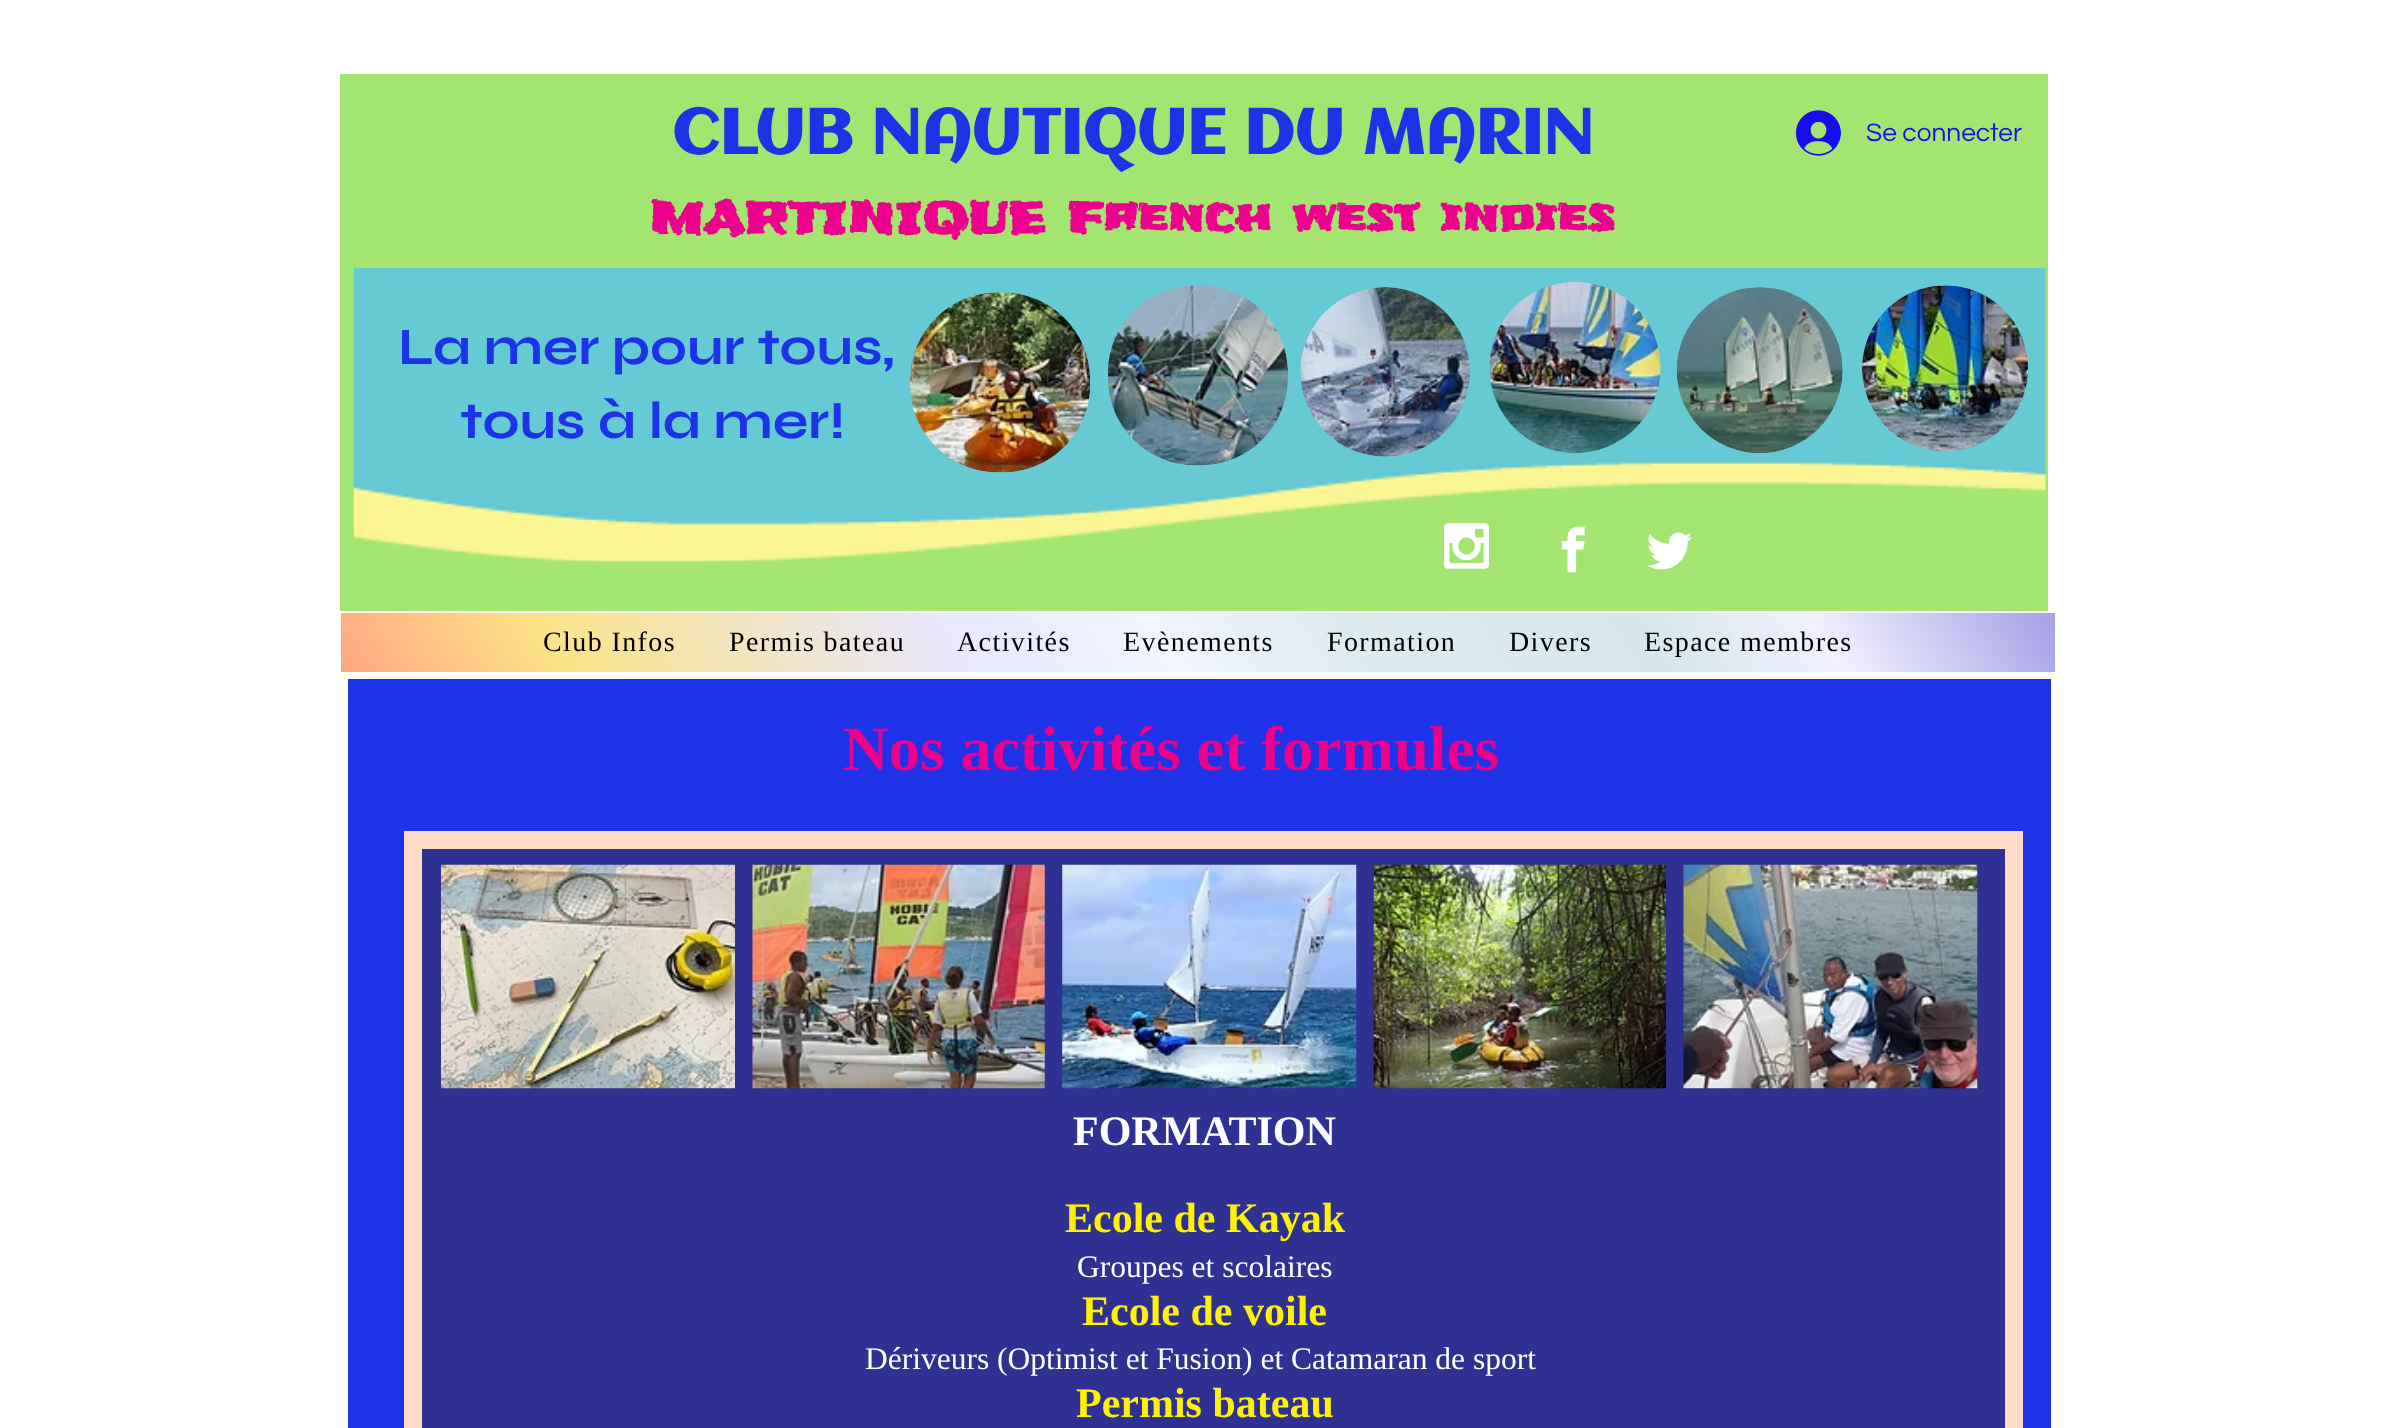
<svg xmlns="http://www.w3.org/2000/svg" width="2393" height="1428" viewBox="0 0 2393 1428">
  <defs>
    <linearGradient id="g1" gradientUnits="userSpaceOnUse" x1="568" y1="1036" x2="1827" y2="249"><stop offset="0" stop-color="#ffa685"/><stop offset="0.13" stop-color="#fce387"/><stop offset="0.36" stop-color="#e8e7ff"/><stop offset="0.48" stop-color="#f1f5fe"/><stop offset="0.59" stop-color="#ddebef"/><stop offset="0.76" stop-color="#d6e7ec"/><stop offset="0.86" stop-color="#f1f0ff"/><stop offset="0.99" stop-color="#a9a5e8"/></linearGradient>
  </defs>
  <rect width="100%" height="100%" fill="#fff"/>
  <path d="M340 74h1708v537H340z" fill="#a4e571"/>
  <image x="353" y="267" width="1693" height="295" href="img/1.png"/>
  <image x="910" y="292" width="180" height="181" href="img/2.png"/>
  <image x="1108" y="285" width="180" height="181" href="img/3.png"/>
  <image x="1300" y="287" width="170" height="170" href="img/4.png"/>
  <image x="1489" y="282" width="172" height="171" href="img/5.png"/>
  <image x="1676" y="287" width="167" height="166" href="img/6.png"/>
  <image x="1862" y="285" width="166" height="167" href="img/7.png"/>
  <image x="1444" y="523" width="45" height="46" href="img/8.png"/>
  <image x="1561" y="526" width="24" height="47" href="img/9.png"/>
  <image x="1647" y="532" width="45" height="38" href="img/10.png"/>
  <path d="M341 613h1714v59H341z" fill="url(#g1)"/>
  <image x="1796" y="110" width="45" height="46" href="img/11.png"/>
  <path d="M348 679h1703v749H348z" fill="#1e32e8"/>
  <path d="M413 840h1601v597H413z" fill="#2e3092" stroke="#fedcc6" stroke-width="18"/>
  <image x="441" y="864" width="294" height="225" href="img/12.png"/>
  <image x="752" y="864" width="293" height="225" href="img/13.png"/>
  <image x="1062" y="864" width="295" height="225" href="img/14.png"/>
  <image x="1373" y="864" width="293" height="225" href="img/15.png"/>
  <image x="1683" y="864" width="295" height="225" href="img/16.png"/>
  <text x="672" y="154" font-family="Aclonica" font-size="63" font-weight="bold" fill="#1e33e8">CLUB NAUTIQUE DU MARIN</text>
  <text x="649" y="233" font-family="Frijole" font-size="42" font-weight="bold" fill="#ec008c">MARTINIQUE French west indies</text>
  <g font-family="Syne" font-size="52.5" font-weight="bold" fill="#1e33e8">
    <text x="398" y="364">La mer pour tous,</text>
    <text x="460" y="438">tous à la mer!</text>
  </g>
  <g font-family="Liberation Serif" font-size="28" letter-spacing="1.4" fill="#000">
    <text x="543" y="651">Club Infos</text>
    <text x="729" y="651">Permis bateau</text>
    <text x="957" y="651">Activités</text>
    <text x="1123" y="651">Evènements</text>
    <text x="1327" y="651">Formation</text>
    <text x="1509" y="651">Divers</text>
    <text x="1644" y="651">Espace membres</text>
  </g>
  <text x="1866" y="141" font-family="Questrial" font-size="26.25" fill="#170df2">Se connecter</text>
  <text x="843" y="770" font-family="Liberation Serif" font-size="63" font-weight="bold" fill="#ec008c">Nos activités et formules</text>
  <text x="1073" y="1145" font-family="Liberation Serif" font-size="42" font-weight="bold" fill="#fff">FORMATION</text>
  <text x="1065" y="1232" font-family="Liberation Serif" font-size="42" font-weight="bold" fill="#fff200">Ecole de Kayak</text>
  <text x="1077" y="1277" font-family="Liberation Serif" font-size="31.5" fill="#fff">Groupes et scolaires</text>
  <text x="1082" y="1325" font-family="Liberation Serif" font-size="42" font-weight="bold" fill="#fff200">Ecole de voile</text>
  <text x="865" y="1369" font-family="Liberation Serif" font-size="31.5" fill="#fff">Dériveurs (Optimist et Fusion) et Catamaran de sport</text>
  <text x="1076" y="1417" font-family="Liberation Serif" font-size="42" font-weight="bold" fill="#fff200">Permis bateau</text>
</svg>
